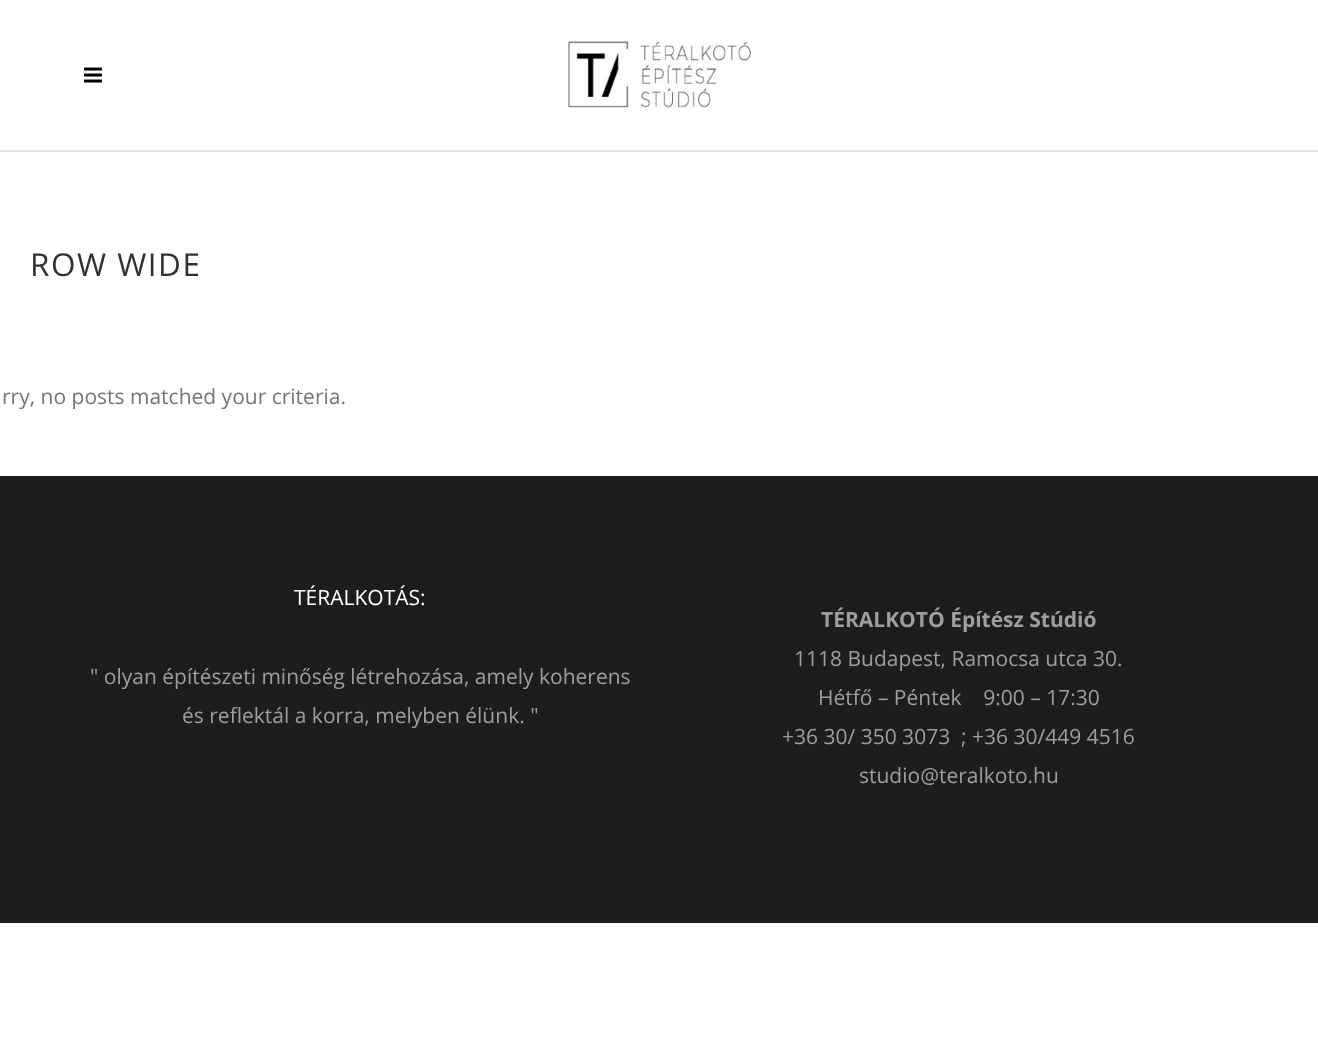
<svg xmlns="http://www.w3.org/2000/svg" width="1318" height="1057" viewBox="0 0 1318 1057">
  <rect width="100%" height="100%" fill="#fff"/>
  <path d="M0 150h1318v2H0z" fill="#e0e0e0"/>
  <image x="84" y="67" width="18" height="16" href="img/1.png"/>
  <image x="568" y="40" width="186" height="68" href="img/2.png"/>
  <path d="M0 476h1318v447H0z" fill="#1d1d1d"/>
  <text x="30" y="276" font-family="Open Sans" font-size="31.5" letter-spacing="1.5" fill="#313131">ROW WIDE</text>
  <text x="2" y="404" font-family="Open Sans" font-size="21" fill="#757575">rry, no posts matched your criteria.</text>
  <text x="294" y="605" font-family="Open Sans" font-size="21" fill="#fff">TÉRALKOTÁS:</text>
  <g font-family="Open Sans" font-size="21" fill="#9e9e9e">
    <text x="90" y="684">" olyan építészeti minőség létrehozása, amely koherens</text>
    <text x="182" y="723">és reflektál a korra, melyben élünk. "</text>
  </g>
  <text x="821" y="627" font-family="Open Sans" font-size="21" font-weight="bold" fill="#9e9e9e">TÉRALKOTÓ Építész Stúdió</text>
  <g font-family="Open Sans" font-size="21" fill="#9e9e9e">
    <text x="794" y="666">1118 Budapest, Ramocsa utca 30.</text>
    <text x="818" y="705" xml:space="preserve">Hétfő – Péntek    9:00 – 17:30</text>
    <text x="782" y="744" xml:space="preserve">+36 30/ 350 3073  ; +36 30/449 4516</text>
    <text x="859" y="783">studio@teralkoto.hu</text>
  </g>
</svg>
